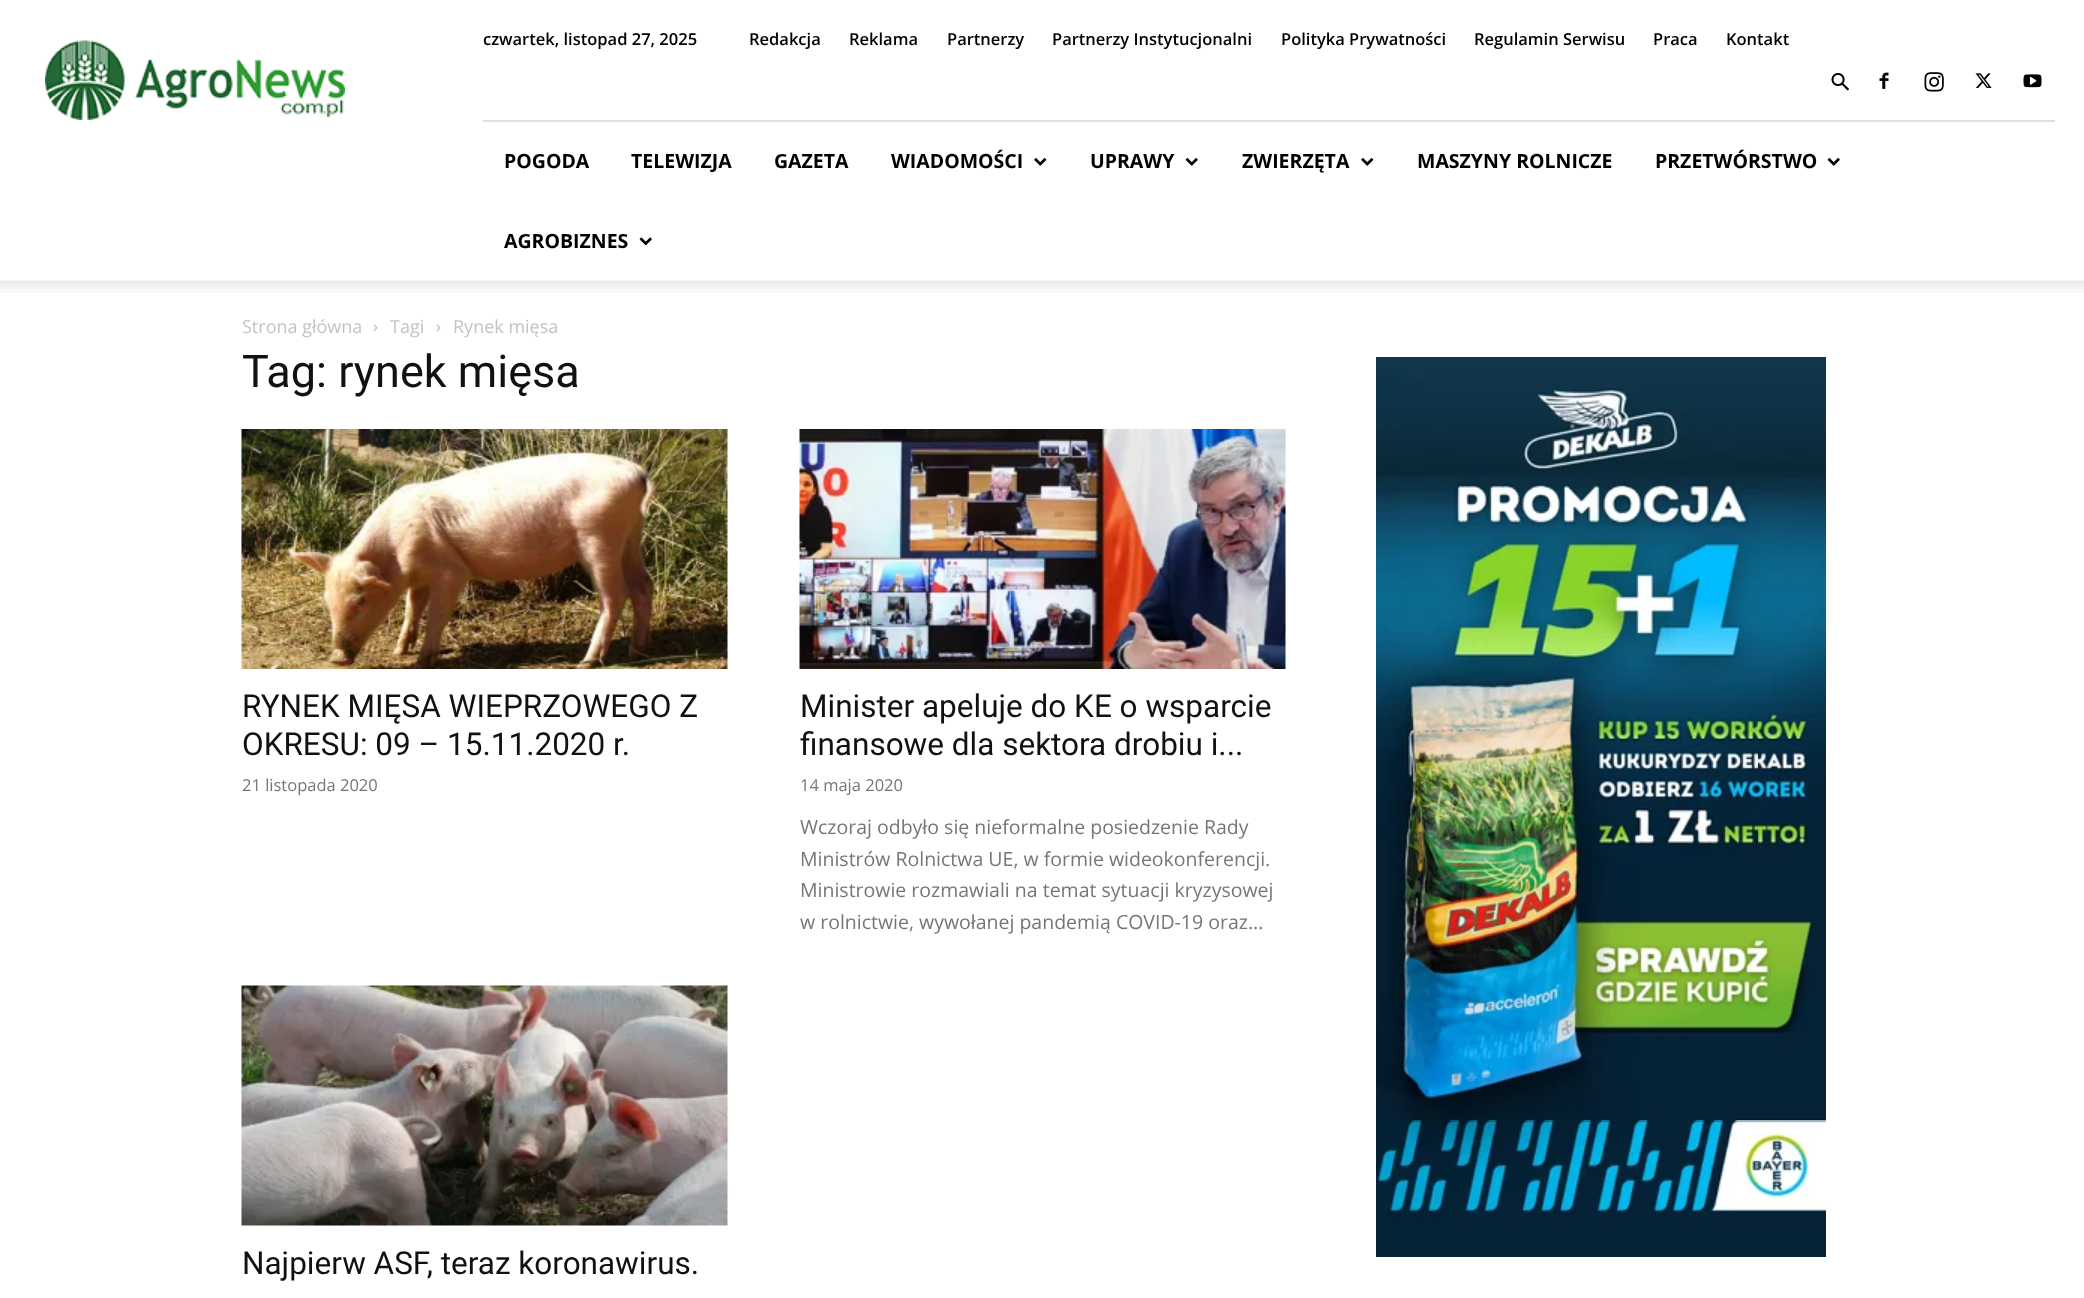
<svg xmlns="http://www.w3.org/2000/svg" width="2084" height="1298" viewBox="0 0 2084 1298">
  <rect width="100%" height="100%" fill="#fff"/>
  <image x="45" y="40" width="300" height="80" href="img/1.png"/>
  <path d="M483 120h1572v2H483z" fill="#e0e0e0"/>
  <image x="1831" y="73" width="18" height="18" href="img/2.png"/>
  <image x="1879" y="72" width="10" height="17" href="img/3.png"/>
  <image x="1924" y="72" width="20" height="20" href="img/4.png"/>
  <image x="1975" y="73" width="17" height="15" href="img/5.png"/>
  <image x="2023" y="74" width="19" height="14" href="img/6.png"/>
  <image x="1034" y="158" width="13" height="8" href="img/7.png"/>
  <image x="1185" y="158" width="13" height="8" href="img/8.png"/>
  <image x="1361" y="158" width="13" height="8" href="img/7.png"/>
  <image x="1827" y="158" width="13" height="8" href="img/8.png"/>
  <image x="639" y="237" width="13" height="9" href="img/9.png"/>
  <image x="0" y="280" width="2084" height="13" href="img/10.png"/>
  <image x="373" y="324" width="5" height="8" href="img/11.png"/>
  <image x="436" y="324" width="5" height="8" href="img/11.png"/>
  <image x="241" y="429" width="487" height="240" href="img/12.png"/>
  <image x="799" y="429" width="487" height="240" href="img/13.png"/>
  <image x="241" y="985" width="487" height="241" href="img/14.png"/>
  <image x="1376" y="357" width="450" height="900" href="img/15.png"/>
  <g font-family="Open Sans" font-size="16.5" font-weight="600" fill="#000">
    <text x="483" y="45">czwartek, listopad 27, 2025</text>
    <text x="749" y="45">Redakcja</text>
    <text x="849" y="45">Reklama</text>
    <text x="947" y="45">Partnerzy</text>
    <text x="1052" y="45">Partnerzy Instytucjonalni</text>
    <text x="1281" y="45">Polityka Prywatności</text>
    <text x="1474" y="45">Regulamin Serwisu</text>
    <text x="1653" y="45">Praca</text>
    <text x="1726" y="45">Kontakt</text>
  </g>
  <g font-family="Open Sans" font-size="19.5" font-weight="bold" fill="#000">
    <text x="504" y="168">POGODA</text>
    <text x="631" y="168">TELEWIZJA</text>
    <text x="774" y="168">GAZETA</text>
    <text x="891" y="168">WIADOMOŚCI</text>
    <text x="1090" y="168">UPRAWY</text>
    <text x="1242" y="168">ZWIERZĘTA</text>
    <text x="1417" y="168">MASZYNY ROLNICZE</text>
    <text x="1655" y="168">PRZETWÓRSTWO</text>
    <text x="504" y="248">AGROBIZNES</text>
  </g>
  <g font-family="Open Sans" font-size="18" fill="#c3c3c3">
    <text x="242" y="333">Strona główna</text>
    <text x="390" y="333">Tagi</text>
    <text x="453" y="333">Rynek mięsa</text>
  </g>
  <text x="242" y="387" font-family="Roboto" font-size="45" fill="#111">Tag: rynek mięsa</text>
  <g font-family="Roboto" font-size="31.5" fill="#111">
    <text x="242" y="717">RYNEK MIĘSA WIEPRZOWEGO Z</text>
    <text x="242" y="755">OKRESU: 09 – 15.11.2020 r.</text>
  </g>
  <text x="242" y="791" font-family="Open Sans" font-size="16.5" fill="#767676">21 listopada 2020</text>
  <g font-family="Roboto" font-size="31.5" fill="#111">
    <text x="800" y="717">Minister apeluje do KE o wsparcie</text>
    <text x="800" y="755">finansowe dla sektora drobiu i...</text>
  </g>
  <text x="800" y="791" font-family="Open Sans" font-size="16.5" fill="#767676">14 maja 2020</text>
  <g font-family="Open Sans" font-size="19.5" fill="#767676">
    <text x="800" y="834">Wczoraj odbyło się nieformalne posiedzenie Rady</text>
    <text x="800" y="866">Ministrów Rolnictwa UE, w formie wideokonferencji.</text>
    <text x="800" y="897">Ministrowie rozmawiali na temat sytuacji kryzysowej</text>
    <text x="800" y="929">w rolnictwie, wywołanej pandemią COVID-19 oraz...</text>
  </g>
  <text x="242" y="1274" font-family="Roboto" font-size="31.5" fill="#111">Najpierw ASF, teraz koronawirus.</text>
</svg>
